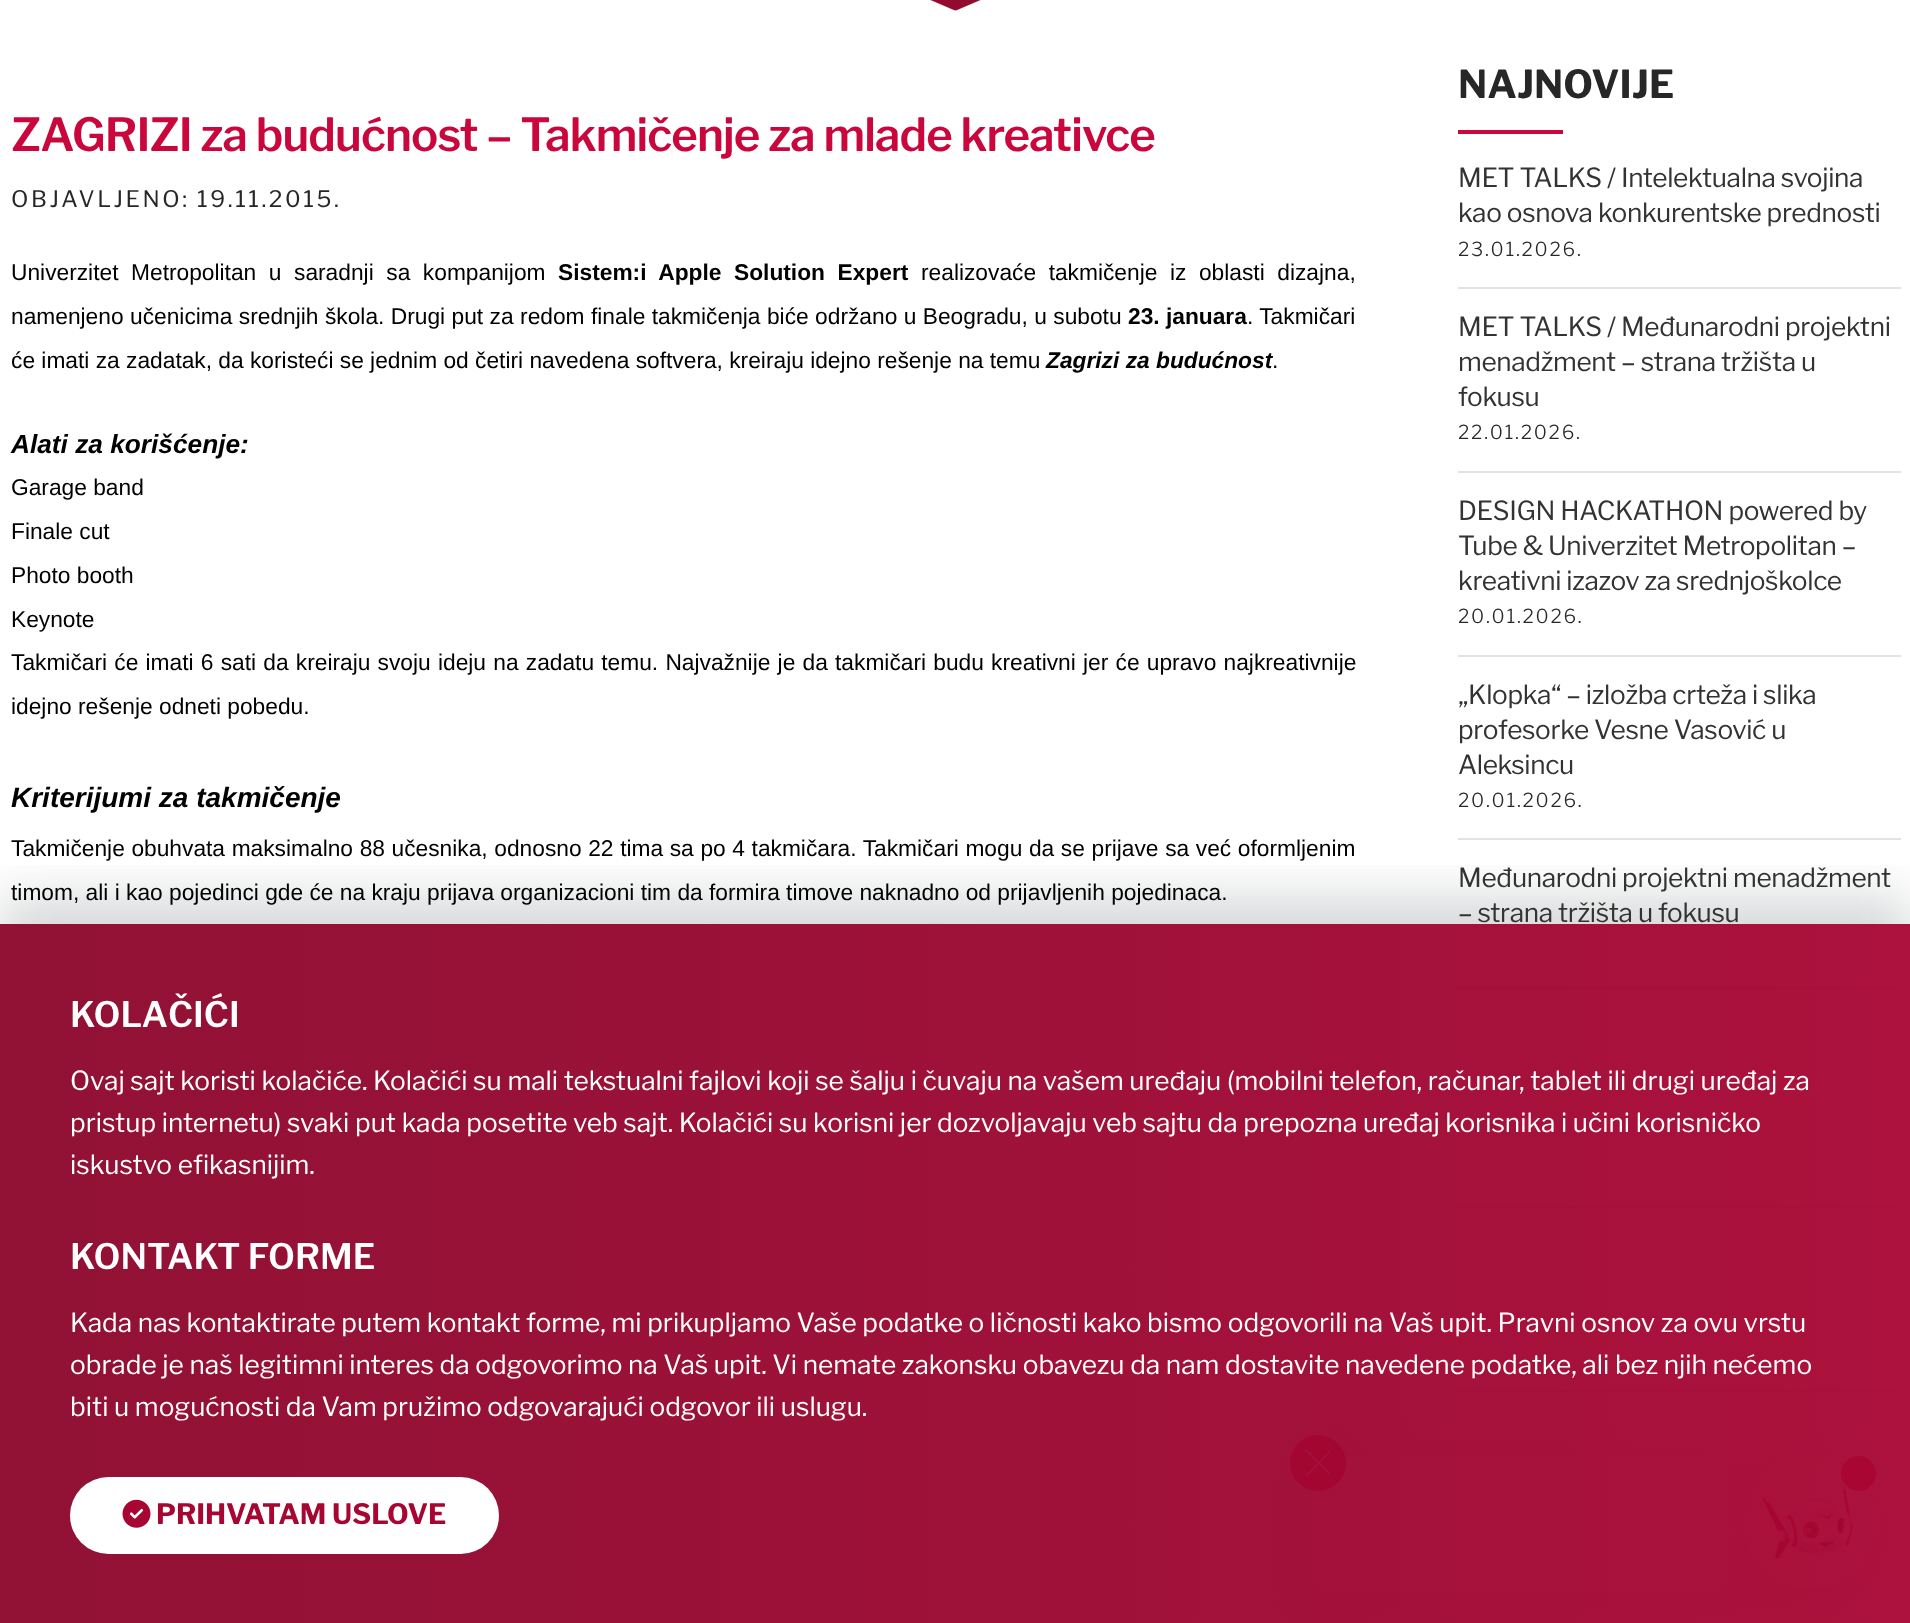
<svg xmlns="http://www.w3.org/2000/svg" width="1910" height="1623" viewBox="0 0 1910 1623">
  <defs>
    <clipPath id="clip1"><path d="M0 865h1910v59H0z"/></clipPath>
    <linearGradient id="g1" gradientUnits="userSpaceOnUse" x1="0" y1="1274" x2="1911" y2="1274"><stop offset="0" stop-color="#8b052a" stop-opacity="0.95"/><stop offset="1" stop-color="#a70532" stop-opacity="0.95"/></linearGradient>
  </defs>
  <rect width="100%" height="100%" fill="#fff"/>
  <image x="930" y="0" width="51" height="11" href="img/1.png"/>
  <path d="M1458 130h105v4H1458z" fill="#c9073d"/>
  <path d="M1458 287h443v2H1458z" fill="#e2e2e2"/>
  <path d="M1458 471h443v2H1458z" fill="#e2e2e2"/>
  <path d="M1458 655h443v2H1458z" fill="#e2e2e2"/>
  <path d="M1458 838h443v2H1458z" fill="#e2e2e2"/>
  <path d="M1458 987h443v2H1458z" fill="#e2e2e2"/>
  <path d="M1458 1206h443v2H1458z" fill="#e2e2e2"/>
  <path d="M1458 1390h443v2H1458z" fill="#e2e2e2"/>
  <rect x="1743" y="1468" width="133" height="133" rx="66.5" fill="#64646f33" filter="blur(25.5px)"/>
  <circle cx="1809.5" cy="1522.5" r="66.5" fill="#fff"/>
  <image x="1762" y="1487" width="93" height="73" href="img/3.png"/>
  <rect x="1311" y="1468" width="416" height="137" rx="14" fill="#64646f33" filter="blur(25.5px)"/>
  <rect x="1311" y="1456" width="416" height="137" rx="14" fill="#fff"/>
  <circle cx="1318" cy="1463" r="28" fill="#e7134e"/>
  <path d="M1306 1449L1330.5 1474L1329.5 1475L1305 1450.5Z" fill="#fff"/>
  <path d="M1305 1475.5L1329.5 1451L1330.5 1452L1306 1477Z" fill="#fff"/>
  <path d="M1718 1509L1739 1530L1718 1551L1697 1530Z" fill="#fff"/>
  <circle cx="1858.5" cy="1473.5" r="17.5" fill="#e7134e"/>
  <g clip-path="url(#clip1)">
    <path d="M0 896h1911v700H0z" fill="#393f4833" filter="blur(24.5px)"/>
  </g>
  <path d="M0 924h1910v699H0z" fill="url(#g1)"/>
  <rect x="70" y="1477" width="429" height="77" rx="38.5" fill="#fff"/>
  <image x="122" y="1499" width="29" height="29" href="img/2.png"/>
  <text x="11" y="151" font-family="Libre Franklin" font-size="45.5" font-weight="600" letter-spacing="-0.88" fill="#c9073d">ZAGRIZI za budućnost – Takmičenje za mlade kreativce</text>
  <text x="11" y="207" font-family="Libre Franklin" font-size="22.75" letter-spacing="2.6" fill="#272727">OBJAVLJENO: 19.11.2015.</text>
  <text x="11" y="280" word-spacing="6.25" font-family="Liberation Sans" font-size="22.75" fill="#000">Univerzitet Metropolitan u saradnji sa kompanijom</text>
  <text x="558" y="280" word-spacing="6.25" font-family="Liberation Sans" font-size="22.75" font-weight="bold" fill="#000">Sistem:i Apple Solution Expert</text>
  <g font-family="Liberation Sans" font-size="22.75" fill="#000">
    <text x="921" y="280" word-spacing="6.25">realizovaće takmičenje iz oblasti dizajna,</text>
    <text x="11" y="324" word-spacing="0.1">namenjeno učenicima srednjih škola. Drugi put za redom finale takmičenja biće održano u Beogradu, u subotu</text>
  </g>
  <text x="1128" y="324" font-family="Liberation Sans" font-size="22.75" font-weight="bold" fill="#000">23. januara</text>
  <g font-family="Liberation Sans" font-size="22.75" fill="#000">
    <text x="1247" y="324">. Takmičari</text>
    <text x="11" y="368">će imati za zadatak, da koristeći se jednim od četiri navedena softvera, kreiraju idejno rešenje na temu</text>
  </g>
  <text x="1046" y="368" font-family="Liberation Sans" font-size="22.75" font-weight="bold" font-style="italic" fill="#000">Zagrizi za budućnost</text>
  <text x="1272" y="368" font-family="Liberation Sans" font-size="22.75" fill="#000">.</text>
  <text x="11" y="453" font-family="Liberation Sans" font-size="26.25" font-weight="bold" font-style="italic" fill="#000">Alati za korišćenje:</text>
  <g font-family="Liberation Sans" font-size="22.75" fill="#000">
    <text x="11" y="495">Garage band</text>
    <text x="11" y="539">Finale cut</text>
    <text x="11" y="583">Photo booth</text>
    <text x="11" y="627">Keynote</text>
    <text x="11" y="670" word-spacing="0.9">Takmičari će imati 6 sati da kreiraju svoju ideju na zadatu temu. Najvažnije je da takmičari budu kreativni jer će upravo najkreativnije</text>
    <text x="11" y="714">idejno rešenje odneti pobedu.</text>
  </g>
  <text x="11" y="807" font-family="Liberation Sans" font-size="28" font-weight="bold" font-style="italic" fill="#000">Kriterijumi za takmičenje</text>
  <g font-family="Liberation Sans" font-size="22.75" fill="#000">
    <text x="11" y="856" word-spacing="0.3">Takmičenje obuhvata maksimalno 88 učesnika, odnosno 22 tima sa po 4 takmičara. Takmičari mogu da se prijave sa već oformljenim</text>
    <text x="11" y="900">timom, ali i kao pojedinci gde će na kraju prijava organizacioni tim da formira timove naknadno od prijavljenih pojedinaca.</text>
  </g>
  <text x="1458" y="98" font-family="Libre Franklin" font-size="38.5" font-weight="bold" fill="#272727">NAJNOVIJE</text>
  <g font-family="Libre Franklin" font-size="26.25" letter-spacing="-0.35" fill="#333">
    <text x="1458" y="187">MET TALKS / Intelektualna svojina</text>
    <text x="1458" y="222">kao osnova konkurentske prednosti</text>
  </g>
  <text x="1458" y="256" font-family="Libre Franklin" font-size="19.25" font-weight="300" letter-spacing="1.75" fill="#272727">23.01.2026.</text>
  <g font-family="Libre Franklin" font-size="26.25" letter-spacing="-0.35" fill="#333">
    <text x="1458" y="336">MET TALKS / Međunarodni projektni</text>
    <text x="1458" y="371">menadžment – strana tržišta u</text>
    <text x="1458" y="406">fokusu</text>
  </g>
  <text x="1458" y="439" font-family="Libre Franklin" font-size="19.25" font-weight="300" letter-spacing="1.75" fill="#272727">22.01.2026.</text>
  <g font-family="Libre Franklin" font-size="26.25" letter-spacing="-0.35" fill="#333">
    <text x="1458" y="520">DESIGN HACKATHON powered by</text>
    <text x="1458" y="555">Tube &amp; Univerzitet Metropolitan –</text>
    <text x="1458" y="590">kreativni izazov za srednjoškolce</text>
  </g>
  <text x="1458" y="623" font-family="Libre Franklin" font-size="19.25" font-weight="300" letter-spacing="1.75" fill="#272727">20.01.2026.</text>
  <g font-family="Libre Franklin" font-size="26.25" letter-spacing="-0.35" fill="#333">
    <text x="1458" y="704">„Klopka“ – izložba crteža i slika</text>
    <text x="1458" y="739">profesorke Vesne Vasović u</text>
    <text x="1458" y="774">Aleksincu</text>
  </g>
  <text x="1458" y="807" font-family="Libre Franklin" font-size="19.25" font-weight="300" letter-spacing="1.75" fill="#272727">20.01.2026.</text>
  <g font-family="Libre Franklin" font-size="26.25" letter-spacing="-0.35" fill="#333">
    <text x="1458" y="887">Međunarodni projektni menadžment</text>
    <text x="1458" y="922">– strana tržišta u fokusu</text>
  </g>
  <text x="70" y="1027" font-family="Libre Franklin" font-size="35" font-weight="600" fill="#fff">KOLAČIĆI</text>
  <g font-family="Libre Franklin" font-size="26.25" fill="#fff">
    <text x="70" y="1090">Ovaj sajt koristi kolačiće. Kolačići su mali tekstualni fajlovi koji se šalju i čuvaju na vašem uređaju (mobilni telefon, računar, tablet ili drugi uređaj za</text>
    <text x="70" y="1132">pristup internetu) svaki put kada posetite veb sajt. Kolačići su korisni jer dozvoljavaju veb sajtu da prepozna uređaj korisnika i učini korisničko</text>
    <text x="70" y="1174">iskustvo efikasnijim.</text>
  </g>
  <text x="70" y="1269" font-family="Libre Franklin" font-size="35" font-weight="600" fill="#fff">KONTAKT FORME</text>
  <g font-family="Libre Franklin" font-size="26.25" fill="#fff">
    <text x="70" y="1332">Kada nas kontaktirate putem kontakt forme, mi prikupljamo Vaše podatke o ličnosti kako bismo odgovorili na Vaš upit. Pravni osnov za ovu vrstu</text>
    <text x="70" y="1374">obrade je naš legitimni interes da odgovorimo na Vaš upit. Vi nemate zakonsku obavezu da nam dostavite navedene podatke, ali bez njih nećemo</text>
    <text x="70" y="1416">biti u mogućnosti da Vam pružimo odgovarajući odgovor ili uslugu.</text>
  </g>
  <text x="156" y="1524" font-family="Libre Franklin" font-size="28" font-weight="bold" fill="#a70532">PRIHVATAM USLOVE</text>
</svg>
